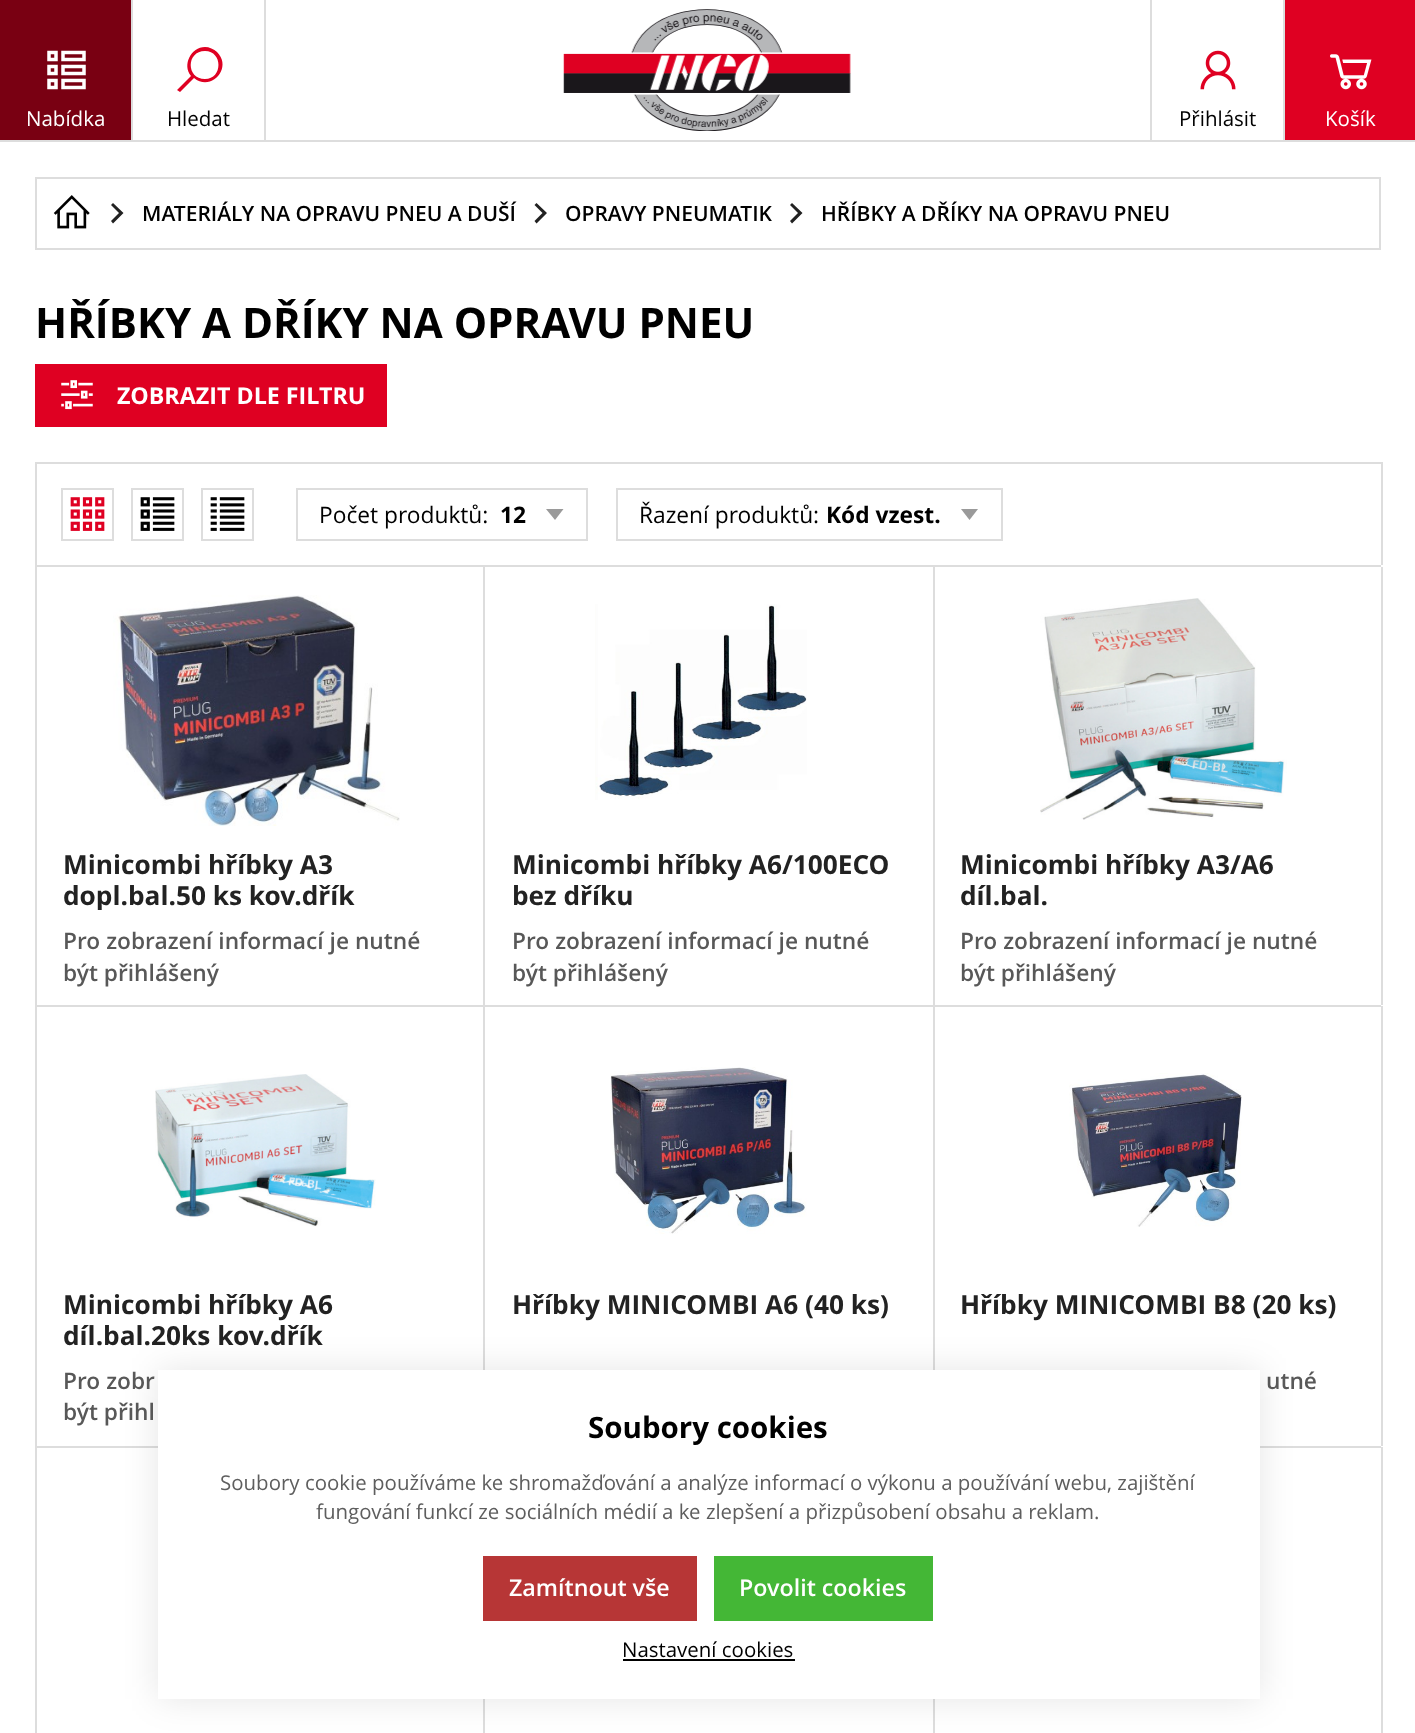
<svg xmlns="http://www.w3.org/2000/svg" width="1415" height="1733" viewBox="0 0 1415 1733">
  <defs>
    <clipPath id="clip1"><path d="M63 826h392v84H63z"/></clipPath>
  </defs>
  <rect width="100%" height="100%" fill="#fff"/>
  <path d="M0 140h1415v2H0z" fill="#ddd"/>
  <path d="M0 0h131v140H0z" fill="#790012"/>
  <path d="M131 0h2v140H131z" fill="#ddd"/>
  <image x="47" y="50" width="39" height="40" href="img/1.png"/>
  <path d="M264 0h2v140H264z" fill="#ddd"/>
  <path d="M205 47C191 47 182 65 191 76L177 90L180 92L194 78C211 92 233 68 217 52C214 49 209 47 205 47ZM205 79C186 79 186 51 205 51C223 51 223 79 205 79Z" fill="#df0022"/>
  <image x="563" y="9" width="288" height="122" href="img/2.png"/>
  <path d="M1150 0h2v140H1150z" fill="#ddd"/>
  <image x="1200" y="50" width="36" height="40" href="img/3.png"/>
  <path d="M1285 0h130v140H1285z" fill="#df0022"/>
  <path d="M1283 0h2v140H1283z" fill="#ddd"/>
  <image x="1330" y="54" width="42" height="36" href="img/4.png"/>
  <path d="M36 178h1344v71H36z" fill="none" stroke="#ddd" stroke-width="2"/>
  <image x="53" y="195" width="37" height="34" href="img/5.png"/>
  <path d="M113 203L123.5 213L113 223.5L111 221L119 213L111 205Z" fill="#222"/>
  <path d="M536.5 203L547 213L536.5 223.5L534.5 221L542.5 213L534.5 205Z" fill="#222"/>
  <path d="M792 203L802.5 213L792 223.5L790 221L798 213L790 205Z" fill="#222"/>
  <path d="M35 364h352v63H35z" fill="#df0022"/>
  <image x="61" y="380" width="32" height="30" href="img/6.png"/>
  <path d="M35 462h1348v2H35z" fill="#ddd"/>
  <path d="M1381 462h2v103H1381z" fill="#ddd"/>
  <path d="M35 462h2v103H35z" fill="#ddd"/>
  <path d="M62 489h51v51H62z" fill="none" stroke="#ddd" stroke-width="2"/>
  <image x="70" y="497" width="35" height="34" href="img/7.png"/>
  <path d="M132 489h51v51H132z" fill="none" stroke="#ddd" stroke-width="2"/>
  <image x="140" y="497" width="35" height="34" href="img/8.png"/>
  <path d="M202 489h51v51H202z" fill="none" stroke="#ddd" stroke-width="2"/>
  <image x="210" y="497" width="35" height="34" href="img/9.png"/>
  <path d="M555 520L546 509H563.5Z" fill="#9a9a9a"/>
  <path d="M297 489h290v51H297z" fill="none" stroke="#ddd" stroke-width="2"/>
  <path d="M969.5 520L961 509H978Z" fill="#9a9a9a"/>
  <path d="M617 489h385v51H617z" fill="none" stroke="#ddd" stroke-width="2"/>
  <path d="M35 565h1346v2H35z" fill="#ddd"/>
  <path d="M35 1005h1346v2H35z" fill="#ddd"/>
  <path d="M483 567h2v438H483z" fill="#ddd"/>
  <path d="M35 567h2v438H35z" fill="#ddd"/>
  <image x="113" y="595" width="287" height="231" href="img/10.png"/>
  <image x="595" y="604" width="212" height="196" href="img/11.png"/>
  <path d="M933 567h2v438H933z" fill="#ddd"/>
  <image x="1040" y="598" width="247" height="222" href="img/12.png"/>
  <path d="M1381 567h2v438H1381z" fill="#ddd"/>
  <path d="M35 1446h123v2H35z" fill="#ddd"/>
  <path d="M483 1006h2v364H483z" fill="#ddd"/>
  <path d="M35 1006h2v440H35z" fill="#ddd"/>
  <image x="155" y="1074" width="221" height="153" href="img/13.png"/>
  <image x="610" y="1067" width="197" height="167" href="img/14.png"/>
  <path d="M933 1006h2v364H933z" fill="#ddd"/>
  <path d="M1260 1446h121v2H1260z" fill="#ddd"/>
  <image x="1069" y="1073" width="173" height="154" href="img/15.png"/>
  <path d="M1381 1006h2v440H1381z" fill="#ddd"/>
  <path d="M483 1699h2v34H483z" fill="#ddd"/>
  <path d="M35 1447h2v286H35z" fill="#ddd"/>
  <path d="M933 1699h2v34H933z" fill="#ddd"/>
  <path d="M1381 1447h2v286H1381z" fill="#ddd"/>
  <path d="M158 1370h1102v329H158z" fill="#0000001a" filter="blur(17.5px)"/>
  <path d="M158 1370h1102v329H158z" fill="#fff"/>
  <path d="M483 1556h214v65H483z" fill="#b73636"/>
  <path d="M714 1556h219v65H714z" fill="#44b736"/>
  <path d="M623 1659h172v2H623z" fill="#000"/>
  <text x="26" y="126" font-family="Open Sans" font-size="20.5" fill="#fff">Nabídka</text>
  <g font-family="Open Sans" font-size="20.5" fill="#000">
    <text x="167" y="126">Hledat</text>
    <text x="1179" y="126">Přihlásit</text>
  </g>
  <text x="1325" y="126" font-family="Open Sans" font-size="20.5" fill="#fff">Košík</text>
  <g font-family="Open Sans" font-size="21" font-weight="600" fill="#000">
    <text x="142" y="221">MATERIÁLY NA OPRAVU PNEU A DUŠÍ</text>
    <text x="565" y="221">OPRAVY PNEUMATIK</text>
    <text x="821" y="221">HŘÍBKY A DŘÍKY NA OPRAVU PNEU</text>
  </g>
  <text x="35" y="338" font-family="Open Sans" font-size="42" font-weight="bold" fill="#000">HŘÍBKY A DŘÍKY NA OPRAVU PNEU</text>
  <text x="117" y="404" font-family="Open Sans" font-size="23.25" font-weight="bold" fill="#fff">ZOBRAZIT DLE FILTRU</text>
  <text x="319" y="523" font-family="Open Sans" font-size="22.75" fill="#000">Počet produktů:</text>
  <text x="500" y="523" font-family="Open Sans" font-size="22.75" font-weight="bold" fill="#000">12</text>
  <text x="639" y="523" font-family="Open Sans" font-size="22.75" fill="#000">Řazení produktů:</text>
  <text x="826" y="523" font-family="Open Sans" font-size="22.75" font-weight="bold" fill="#000">Kód vzest.</text>
  <text x="63" y="874" font-family="Open Sans" font-size="26.25" font-weight="bold" fill="#222">Minicombi hříbky A3</text>
  <g clip-path="url(#clip1)">
    <text x="63" y="905" font-family="Open Sans" font-size="26.25" font-weight="bold" fill="#222">dopl.bal.50 ks kov.dřík</text>
  </g>
  <g font-family="Open Sans" font-size="22.75" font-weight="600" fill="#585858">
    <text x="63" y="949">Pro zobrazení informací je nutné</text>
    <text x="63" y="981">být přihlášený</text>
  </g>
  <g font-family="Open Sans" font-size="26.25" font-weight="bold" fill="#222">
    <text x="512" y="874">Minicombi hříbky A6/100ECO</text>
    <text x="512" y="905">bez dříku</text>
  </g>
  <g font-family="Open Sans" font-size="22.75" font-weight="600" fill="#585858">
    <text x="512" y="949">Pro zobrazení informací je nutné</text>
    <text x="512" y="981">být přihlášený</text>
  </g>
  <g font-family="Open Sans" font-size="26.25" font-weight="bold" fill="#222">
    <text x="960" y="874">Minicombi hříbky A3/A6</text>
    <text x="960" y="905">díl.bal.</text>
  </g>
  <g font-family="Open Sans" font-size="22.75" font-weight="600" fill="#585858">
    <text x="960" y="949">Pro zobrazení informací je nutné</text>
    <text x="960" y="981">být přihlášený</text>
  </g>
  <g font-family="Open Sans" font-size="26.25" font-weight="bold" fill="#222">
    <text x="63" y="1314">Minicombi hříbky A6</text>
    <text x="63" y="1345">díl.bal.20ks kov.dřík</text>
  </g>
  <g font-family="Open Sans" font-size="22.75" font-weight="600" fill="#585858">
    <text x="63" y="1389">Pro zobr</text>
    <text x="63" y="1420">být přihl</text>
  </g>
  <g font-family="Open Sans" font-size="26.25" font-weight="bold" fill="#222">
    <text x="512" y="1314">Hříbky MINICOMBI A6 (40 ks)</text>
    <text x="960" y="1314">Hříbky MINICOMBI B8 (20 ks)</text>
  </g>
  <text x="1266" y="1389" font-family="Open Sans" font-size="22.75" font-weight="600" fill="#585858">utné</text>
  <text x="588" y="1438" font-family="Open Sans" font-size="29.5" font-weight="bold" fill="#000">Soubory cookies</text>
  <g font-family="Open Sans" font-size="20.45" fill="#5e5e5e">
    <text x="220" y="1490">Soubory cookie používáme ke shromažďování a analýze informací o výkonu a používání webu, zajištění</text>
    <text x="316" y="1519">fungování funkcí ze sociálních médií a ke zlepšení a přizpůsobení obsahu a reklam.</text>
  </g>
  <g font-family="Open Sans" font-size="23.25" font-weight="600" fill="#fff">
    <text x="509" y="1596">Zamítnout vše</text>
    <text x="739" y="1596">Povolit cookies</text>
  </g>
  <text x="622" y="1657" font-family="Open Sans" font-size="20.45" fill="#000">Nastavení cookies</text>
</svg>
